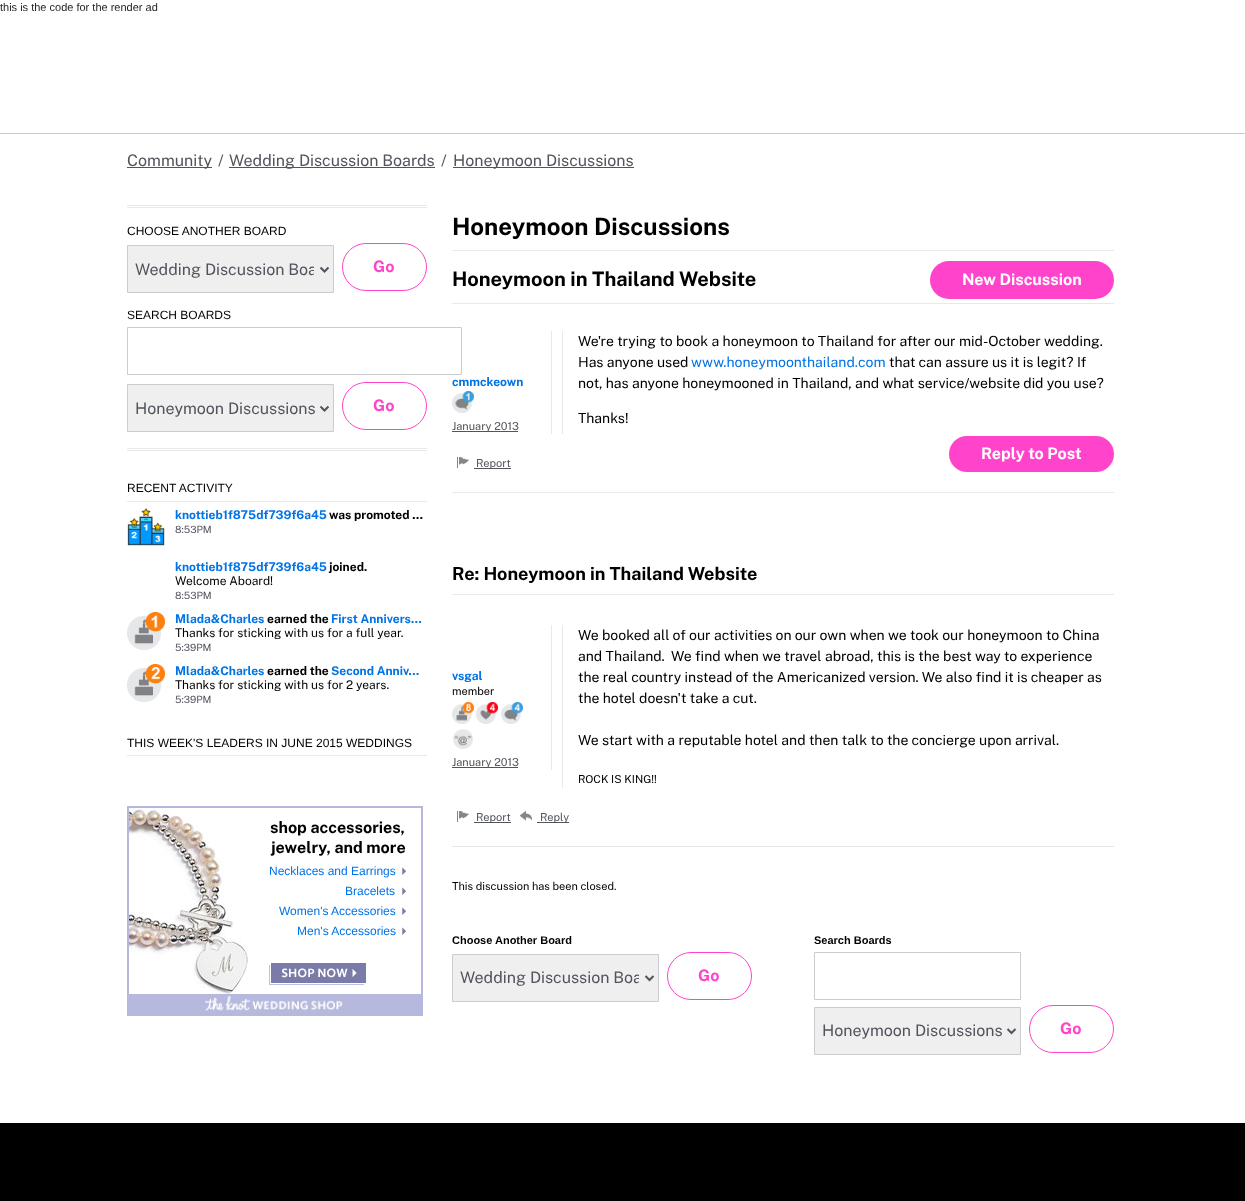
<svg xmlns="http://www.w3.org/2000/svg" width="1245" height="1201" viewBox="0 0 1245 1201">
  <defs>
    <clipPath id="clip1"><path d="M135 259h179v21H135z"/></clipPath>
    <clipPath id="clip2"><path d="M460 967h179v21H460z"/></clipPath>
  </defs>
  <rect width="100%" height="100%" fill="#fff"/>
  <path d="M0 133h1245v1H0z" fill="#ccc"/>
  <path d="M127 167h85v1H127z" fill="#51545c"/>
  <path d="M229 167h206v1H229z" fill="#51545c"/>
  <path d="M453 167h181v1H453z" fill="#51545c"/>
  <path d="M127 205h300v1H127z" fill="#e9e9e9"/>
  <path d="M127 207h300v1H127z" fill="#e9e9e9"/>
  <path d="M127 448h300v1H127z" fill="#e9e9e9"/>
  <path d="M127 450h300v1H127z" fill="#e9e9e9"/>
  <path d="M127.5 245.5h206v47H127.5z" fill="#efefef" stroke="#caccd0"/>
  <path d="M320.5 267.5L324.5 271.5L328.5 267.5" fill="none" stroke="#51545c" stroke-width="2"/>
  <rect x="342.5" y="243.5" width="84" height="47" rx="23.5" fill="none" stroke="#ff44cb"/>
  <path d="M127.5 327.5h334v47H127.5z" fill="none" stroke="#caccd0"/>
  <path d="M127.5 384.5h206v47H127.5z" fill="#efefef" stroke="#caccd0"/>
  <path d="M320.5 406.5L324.5 410.5L328.5 406.5" fill="none" stroke="#51545c" stroke-width="2"/>
  <rect x="342.5" y="382.5" width="84" height="47" rx="23.5" fill="none" stroke="#ff44cb"/>
  <path d="M127 501h300v1H127z" fill="#e9e9e9"/>
  <image x="127" y="508" width="38" height="38" href="img/1.png"/>
  <image x="127" y="612" width="38" height="38" href="img/2.png"/>
  <image x="127" y="664" width="38" height="38" href="img/3.png"/>
  <path d="M127 755h300v1H127z" fill="#e9e9e9"/>
  <path d="M128 807h294v208H128z" fill="none" stroke="#b6b9dd" stroke-width="2"/>
  <image x="129" y="808" width="120" height="186" href="img/4.png"/>
  <image x="402" y="867" width="4" height="8" href="img/5.png"/>
  <image x="402" y="887" width="4" height="8" href="img/5.png"/>
  <image x="402" y="907" width="4" height="8" href="img/5.png"/>
  <image x="402" y="927" width="4" height="8" href="img/5.png"/>
  <image x="269" y="963" width="97" height="22" href="img/6.png"/>
  <path d="M129 994h292v20H129z" fill="#b6b8de"/>
  <image x="205" y="996" width="138" height="15" href="img/7.png"/>
  <path d="M452 250h662v1H452z" fill="#e9e9e9"/>
  <path d="M452 303h662v1H452z" fill="#e9e9e9"/>
  <path d="M452 492h662v1H452z" fill="#e9e9e9"/>
  <path d="M562 331h1v103H562z" fill="#e9e9e9"/>
  <rect x="949" y="436" width="165" height="36" rx="18" fill="#ff44cb"/>
  <image x="457" y="457" width="12" height="11" href="img/8.png"/>
  <path d="M474 468h37v1H474z" fill="#51545c"/>
  <path d="M551 331h1v103H551z" fill="#e9e9e9"/>
  <image x="452" y="391" width="22" height="22" href="img/9.png"/>
  <path d="M452 431h66v1H452z" fill="#51545c"/>
  <rect x="930" y="261" width="184" height="38" rx="19" fill="#ff44cb"/>
  <path d="M452 594h662v1H452z" fill="#e9e9e9"/>
  <path d="M452 846h662v1H452z" fill="#e6e6e6"/>
  <path d="M562 625h1v163H562z" fill="#e9e9e9"/>
  <image x="457" y="811" width="12" height="11" href="img/8.png"/>
  <path d="M474 822h37v1H474z" fill="#51545c"/>
  <image x="520" y="811" width="12" height="10" href="img/10.png"/>
  <path d="M537 822h32v1H537z" fill="#51545c"/>
  <path d="M551 625h1v145H551z" fill="#e9e9e9"/>
  <image x="452" y="702" width="22" height="22" href="img/11.png"/>
  <image x="476" y="702" width="22" height="22" href="img/12.png"/>
  <image x="501" y="702" width="22" height="22" href="img/13.png"/>
  <image x="453" y="729" width="20" height="20" href="img/14.png"/>
  <path d="M452 767h66v1H452z" fill="#51545c"/>
  <path d="M814.5 952.5h206v47H814.5z" fill="none" stroke="#caccd0"/>
  <path d="M814.5 1007.5h206v47H814.5z" fill="#efefef" stroke="#caccd0"/>
  <path d="M1007.5 1029L1011.5 1033L1015.5 1029" fill="none" stroke="#51545c" stroke-width="2"/>
  <rect x="1029.5" y="1005.5" width="84" height="47" rx="23.5" fill="none" stroke="#ff44cb"/>
  <path d="M452.5 954.5h206v47H452.5z" fill="#efefef" stroke="#caccd0"/>
  <path d="M645.5 976L649.5 980L653.5 976" fill="none" stroke="#51545c" stroke-width="2"/>
  <rect x="667.5" y="952.5" width="84" height="47" rx="23.5" fill="none" stroke="#ff44cb"/>
  <path d="M0 1123h1245v78H0z" fill="#000"/>
  <text x="0" y="11" font-family="Liberation Sans" font-size="11" fill="#1f1f1f">this is the code for the render ad</text>
  <g font-family="Public Sans" font-size="16" fill="#51545c">
    <text x="127" y="166">Community</text>
    <text x="218" y="166">/</text>
    <text x="229" y="166">Wedding Discussion Boards</text>
    <text x="441" y="166">/</text>
    <text x="453" y="166">Honeymoon Discussions</text>
  </g>
  <text x="127" y="235" font-family="Liberation Sans" font-size="12" fill="#000">CHOOSE ANOTHER BOARD</text>
  <g clip-path="url(#clip1)">
    <text x="135" y="275" font-family="Public Sans" font-size="16" fill="#51545c">Wedding Discussion Boa</text>
  </g>
  <text x="373" y="272" font-family="Public Sans" font-size="16" font-weight="bold" fill="#ff44cb">Go</text>
  <text x="127" y="319" font-family="Liberation Sans" font-size="12" fill="#000">SEARCH BOARDS</text>
  <text x="135" y="414" font-family="Public Sans" font-size="16" fill="#51545c">Honeymoon Discussions</text>
  <text x="373" y="411" font-family="Public Sans" font-size="16" font-weight="bold" fill="#ff44cb">Go</text>
  <text x="127" y="492" font-family="Liberation Sans" font-size="12" fill="#000">RECENT ACTIVITY</text>
  <text x="175" y="519" font-family="Public Sans" font-size="12" font-weight="bold" fill="#0073e6">knottieb1f875df739f6a45</text>
  <text x="329" y="519" font-family="Public Sans" font-size="12" font-weight="bold" fill="#000">was promoted …</text>
  <text x="175" y="533" font-family="Public Sans" font-size="10" fill="#51545c">8:53PM</text>
  <text x="175" y="571" font-family="Public Sans" font-size="12" font-weight="bold" fill="#0073e6">knottieb1f875df739f6a45</text>
  <text x="329" y="571" font-family="Public Sans" font-size="12" font-weight="bold" fill="#000">joined.</text>
  <text x="175" y="585" font-family="Public Sans" font-size="12" fill="#000">Welcome Aboard!</text>
  <text x="175" y="599" font-family="Public Sans" font-size="10" fill="#51545c">8:53PM</text>
  <text x="175" y="623" font-family="Public Sans" font-size="12" font-weight="bold" fill="#0073e6">Mlada&amp;Charles</text>
  <text x="267" y="623" font-family="Public Sans" font-size="12" font-weight="bold" fill="#000">earned the</text>
  <text x="331" y="623" font-family="Public Sans" font-size="12" font-weight="bold" fill="#0073e6">First Annivers…</text>
  <text x="175" y="637" font-family="Public Sans" font-size="12" fill="#000">Thanks for sticking with us for a full year.</text>
  <text x="175" y="651" font-family="Public Sans" font-size="10" fill="#51545c">5:39PM</text>
  <text x="175" y="675" font-family="Public Sans" font-size="12" font-weight="bold" fill="#0073e6">Mlada&amp;Charles</text>
  <text x="267" y="675" font-family="Public Sans" font-size="12" font-weight="bold" fill="#000">earned the</text>
  <text x="331" y="675" font-family="Public Sans" font-size="12" font-weight="bold" fill="#0073e6">Second Anniv…</text>
  <text x="175" y="689" font-family="Public Sans" font-size="12" fill="#000">Thanks for sticking with us for 2 years.</text>
  <text x="175" y="703" font-family="Public Sans" font-size="10" fill="#51545c">5:39PM</text>
  <text x="127" y="747" font-family="Liberation Sans" font-size="12" fill="#000">THIS WEEK'S LEADERS IN JUNE 2015 WEDDINGS</text>
  <g font-family="Public Sans" font-size="16" font-weight="bold" fill="#000">
    <text x="270" y="833">shop accessories,</text>
    <text x="271" y="853">jewelry, and more</text>
  </g>
  <g font-family="Liberation Sans" font-size="12" fill="#0073e6">
    <text x="269" y="875">Necklaces and Earrings</text>
    <text x="345" y="895">Bracelets</text>
    <text x="279" y="915">Women's Accessories</text>
    <text x="297" y="935">Men's Accessories</text>
  </g>
  <text x="452" y="235" font-family="Public Sans" font-size="24" font-weight="bold" fill="#000">Honeymoon Discussions</text>
  <text x="452" y="286" font-family="Public Sans" font-size="20" font-weight="bold" fill="#000">Honeymoon in Thailand Website</text>
  <g font-family="Public Sans" font-size="14" fill="#000">
    <text x="578" y="346">We're trying to book a honeymoon to Thailand for after our mid-October wedding.</text>
    <text x="578" y="367">Has anyone used</text>
  </g>
  <text x="691" y="367" font-family="Public Sans" font-size="14" fill="#0073e6">www.honeymoonthailand.com</text>
  <g font-family="Public Sans" font-size="14" fill="#000">
    <text x="889" y="367">that can assure us it is legit? If</text>
    <text x="578" y="388">not, has anyone honeymooned in Thailand, and what service/website did you use?</text>
    <text x="578" y="423">Thanks!</text>
  </g>
  <text x="981" y="459" font-family="Public Sans" font-size="16" font-weight="bold" fill="#fff">Reply to Post</text>
  <text x="476" y="467" font-family="Public Sans" font-size="11" fill="#51545c">Report</text>
  <text x="452" y="386" font-family="Public Sans" font-size="12" font-weight="bold" fill="#0073e6">cmmckeown</text>
  <text x="452" y="430" font-family="Public Sans" font-size="11" fill="#51545c">January 2013</text>
  <text x="962" y="285" font-family="Public Sans" font-size="16" font-weight="bold" fill="#fff">New Discussion</text>
  <text x="452" y="580" font-family="Public Sans" font-size="18" font-weight="bold" fill="#000">Re: Honeymoon in Thailand Website</text>
  <g font-family="Public Sans" font-size="14" fill="#000">
    <text x="578" y="640">We booked all of our activities on our own when we took our honeymoon to China</text>
    <text x="578" y="661" xml:space="preserve">and Thailand.  We find when we travel abroad, this is the best way to experience</text>
    <text x="578" y="682">the real country instead of the Americanized version. We also find it is cheaper as</text>
    <text x="578" y="703">the hotel doesn't take a cut.</text>
    <text x="578" y="745">We start with a reputable hotel and then talk to the concierge upon arrival.</text>
  </g>
  <text x="578" y="783" font-family="Public Sans" font-size="11" fill="#000">ROCK IS KING!!</text>
  <g font-family="Public Sans" font-size="11" fill="#51545c">
    <text x="476" y="821">Report</text>
    <text x="540" y="821">Reply</text>
  </g>
  <text x="452" y="680" font-family="Public Sans" font-size="12" font-weight="bold" fill="#0073e6">vsgal</text>
  <text x="452" y="695" font-family="Public Sans" font-size="11" fill="#000">member</text>
  <text x="452" y="766" font-family="Public Sans" font-size="11" fill="#51545c">January 2013</text>
  <text x="452" y="890" font-family="Public Sans" font-size="11" fill="#000">This discussion has been closed.</text>
  <g font-family="Liberation Sans" font-size="11" font-weight="bold" fill="#000">
    <text x="452" y="944">Choose Another Board</text>
    <text x="814" y="944">Search Boards</text>
  </g>
  <text x="822" y="1036" font-family="Public Sans" font-size="16" fill="#51545c">Honeymoon Discussions</text>
  <text x="1060" y="1034" font-family="Public Sans" font-size="16" font-weight="bold" fill="#ff44cb">Go</text>
  <g clip-path="url(#clip2)">
    <text x="460" y="983" font-family="Public Sans" font-size="16" fill="#51545c">Wedding Discussion Boa</text>
  </g>
  <text x="698" y="981" font-family="Public Sans" font-size="16" font-weight="bold" fill="#ff44cb">Go</text>
</svg>
